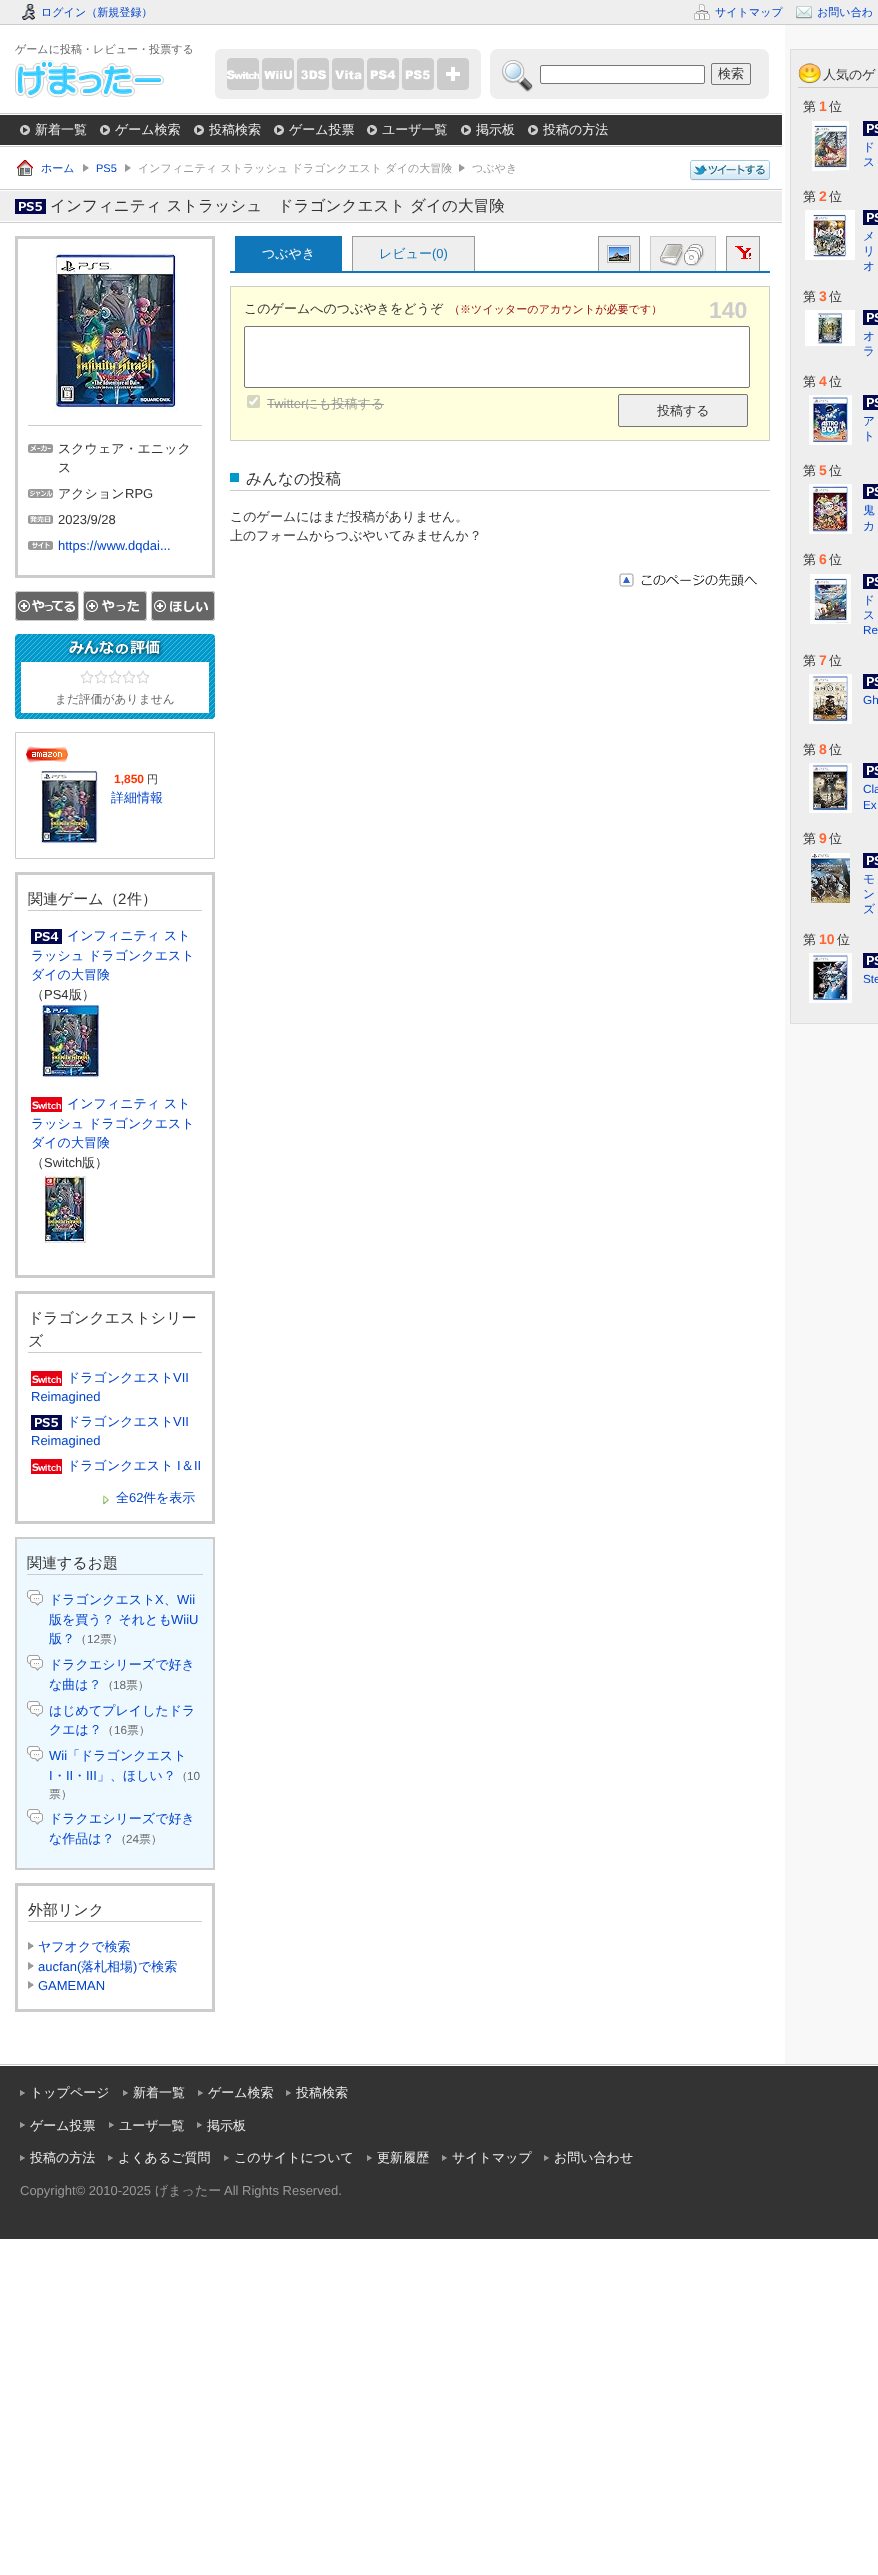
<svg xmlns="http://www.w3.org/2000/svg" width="878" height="2575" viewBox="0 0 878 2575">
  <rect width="100%" height="100%" fill="#fff"/>
  <path d="M785 25h93v2039H785z" fill="#f8f8f8"/>
  <path d="M0 0h878v24H0z" fill="#eee"/>
  <path d="M0 24h878v1H0z" fill="#ccc"/>
  <image x="22" y="4" width="13" height="16" href="img/1.png"/>
  <image x="694" y="4" width="16" height="16" href="img/2.png"/>
  <image x="796" y="6" width="16" height="13" href="img/3.png"/>
  <image x="215" y="49" width="266" height="50" href="img/4.png"/>
  <image x="227" y="58" width="32" height="32" href="img/5.png"/>
  <image x="262" y="58" width="32" height="32" href="img/6.png"/>
  <image x="297" y="58" width="32" height="32" href="img/7.png"/>
  <image x="332" y="58" width="32" height="32" href="img/8.png"/>
  <image x="367" y="58" width="32" height="32" href="img/9.png"/>
  <image x="402" y="58" width="32" height="32" href="img/10.png"/>
  <image x="437" y="58" width="32" height="32" href="img/11.png"/>
  <image x="15" y="60" width="149" height="38" href="img/12.png"/>
  <image x="490" y="49" width="279" height="50" href="img/13.png"/>
  <rect x="540.5" y="65.5" width="164" height="18" rx="1.5" fill="#fff" stroke="#767676"/>
  <rect x="711.5" y="63.5" width="39" height="21" rx="1.5" fill="none" stroke="#767676"/>
  <image x="0" y="113" width="782" height="34" href="img/14.png"/>
  <image x="20" y="125" width="10" height="10" href="img/15.png"/>
  <image x="100" y="125" width="10" height="10" href="img/15.png"/>
  <image x="194" y="125" width="10" height="10" href="img/15.png"/>
  <image x="274" y="125" width="10" height="10" href="img/15.png"/>
  <image x="367" y="125" width="10" height="10" href="img/15.png"/>
  <image x="461" y="125" width="10" height="10" href="img/15.png"/>
  <image x="528" y="125" width="10" height="10" href="img/15.png"/>
  <image x="17" y="160" width="16" height="16" href="img/16.png"/>
  <image x="83" y="164" width="6" height="8" href="img/17.png"/>
  <image x="125" y="164" width="6" height="8" href="img/17.png"/>
  <image x="459" y="164" width="6" height="8" href="img/17.png"/>
  <image x="690" y="160" width="80" height="21" href="img/18.png"/>
  <image x="0" y="189" width="782" height="34" href="img/19.png"/>
  <image x="15" y="199" width="31" height="15" href="img/20.png"/>
  <path d="M230 271h540v2H230z" fill="#17b"/>
  <path d="M235 236h107v35H235z" fill="#17b"/>
  <path d="M353 237h121v34H353z" fill="#eee"/>
  <path d="M352 236h123v1H352z" fill="#999"/>
  <path d="M474 236h1v35H474z" fill="#999"/>
  <path d="M352 236h1v35H352z" fill="#999"/>
  <path d="M599 237h40v34H599z" fill="#eee"/>
  <path d="M598 236h42v1H598z" fill="#999"/>
  <path d="M639 236h1v35H639z" fill="#999"/>
  <path d="M598 236h1v35H598z" fill="#999"/>
  <image x="607" y="245" width="24" height="18" href="img/21.png"/>
  <path d="M651 237h64v34H651z" fill="#eee"/>
  <path d="M650 236h66v1H650z" fill="#ccc"/>
  <path d="M715 236h1v35H715z" fill="#ccc"/>
  <path d="M650 236h1v35H650z" fill="#ccc"/>
  <image x="659" y="244" width="48" height="22" href="img/22.png"/>
  <path d="M727 237h32v34H727z" fill="#eee"/>
  <path d="M726 236h34v1H726z" fill="#999"/>
  <path d="M759 236h1v35H759z" fill="#999"/>
  <path d="M726 236h1v35H726z" fill="#999"/>
  <image x="735" y="246" width="16" height="13" href="img/23.png"/>
  <path d="M230.5 286.5h539v154H230.5z" fill="#ffd" stroke="#ccc"/>
  <rect x="244.5" y="326.5" width="505" height="61" rx="1.5" fill="#fff" stroke="#767676"/>
  <rect x="247" y="395" width="13" height="13" rx="2" fill="#d6d6be"/>
  <path d="M249.5 401.5L252 404L257.5 397.5" fill="none" stroke="#fff" stroke-width="2.1"/>
  <path d="M267 404h117v1H267z" fill="#999"/>
  <rect x="618.5" y="394.5" width="129" height="32" rx="1.5" fill="#efefef" stroke="#767676"/>
  <path d="M230 473h9v9H230z" fill="#09c"/>
  <path d="M230 490h540v1H230z" fill="#ccc"/>
  <image x="619" y="573" width="138" height="14" href="img/24.png"/>
  <path d="M16.5 237.5h197v339H16.5z" fill="none" stroke="#ccc" stroke-width="3"/>
  <image x="53" y="252" width="125" height="160" href="img/25.png"/>
  <path d="M28 425h174v1H28z" fill="#ccc"/>
  <image x="28" y="444" width="25" height="9" href="img/26.png"/>
  <image x="28" y="489" width="25" height="9" href="img/27.png"/>
  <image x="28" y="515" width="25" height="9" href="img/28.png"/>
  <image x="28" y="541" width="25" height="9" href="img/29.png"/>
  <image x="15" y="591" width="64" height="30" href="img/30.png"/>
  <image x="83" y="591" width="64" height="30" href="img/31.png"/>
  <image x="151" y="591" width="64" height="30" href="img/32.png"/>
  <image x="15" y="634" width="200" height="85" href="img/33.png"/>
  <image x="80" y="670" width="14" height="14" href="img/34.png"/>
  <image x="94" y="670" width="14" height="14" href="img/34.png"/>
  <image x="108" y="670" width="14" height="14" href="img/34.png"/>
  <image x="122" y="670" width="14" height="14" href="img/34.png"/>
  <image x="136" y="670" width="14" height="14" href="img/34.png"/>
  <path d="M15.5 732.5h199v126H15.5z" fill="none" stroke="#ccc"/>
  <image x="26" y="746" width="42" height="17" href="img/35.png"/>
  <image x="40" y="770" width="58" height="75" href="img/36.png"/>
  <path d="M16.5 873.5h197v403H16.5z" fill="none" stroke="#ccc" stroke-width="3"/>
  <path d="M28 910h174v1H28z" fill="#ccc"/>
  <image x="31" y="929" width="31" height="15" href="img/37.png"/>
  <image x="41" y="1004" width="59" height="75" href="img/38.png"/>
  <image x="31" y="1097" width="31" height="15" href="img/39.png"/>
  <image x="41" y="1172" width="48" height="75" href="img/40.png"/>
  <path d="M16.5 1292.5h197v230H16.5z" fill="none" stroke="#ccc" stroke-width="3"/>
  <path d="M28 1352h174v1H28z" fill="#ccc"/>
  <image x="31" y="1371" width="31" height="15" href="img/39.png"/>
  <image x="31" y="1415" width="31" height="15" href="img/20.png"/>
  <image x="31" y="1459" width="31" height="15" href="img/39.png"/>
  <image x="103" y="1495" width="6" height="10" href="img/41.png"/>
  <path d="M16 1538h198v331H16z" fill="#eef8ff" stroke="#ccc" stroke-width="2"/>
  <path d="M27 1574h176v1H27z" fill="#ccc"/>
  <image x="27" y="1590" width="16" height="16" href="img/42.png"/>
  <image x="27" y="1655" width="16" height="16" href="img/42.png"/>
  <image x="27" y="1701" width="16" height="16" href="img/42.png"/>
  <image x="27" y="1746" width="16" height="16" href="img/42.png"/>
  <image x="27" y="1809" width="16" height="16" href="img/42.png"/>
  <path d="M16.5 1884.5h197v126H16.5z" fill="none" stroke="#ccc" stroke-width="3"/>
  <path d="M28 1921h174v1H28z" fill="#ccc"/>
  <image x="28" y="1942" width="6" height="8" href="img/17.png"/>
  <image x="28" y="1962" width="6" height="8" href="img/17.png"/>
  <image x="28" y="1981" width="6" height="8" href="img/17.png"/>
  <path d="M790.5 49.5h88v974H790.5z" fill="#eee" stroke="#ddd"/>
  <image x="798" y="63" width="23" height="21" href="img/43.png"/>
  <path d="M798 87h80v1H798z" fill="#ccc"/>
  <image x="812" y="121" width="37" height="50" href="img/44.png"/>
  <image x="863" y="121" width="15" height="15" href="img/45.png"/>
  <image x="805" y="210" width="50" height="50" href="img/46.png"/>
  <image x="863" y="210" width="15" height="15" href="img/45.png"/>
  <image x="805" y="310" width="50" height="36" href="img/47.png"/>
  <image x="863" y="310" width="15" height="15" href="img/45.png"/>
  <image x="809" y="395" width="43" height="50" href="img/48.png"/>
  <image x="863" y="395" width="15" height="15" href="img/45.png"/>
  <image x="809" y="484" width="43" height="50" href="img/49.png"/>
  <image x="863" y="484" width="15" height="15" href="img/45.png"/>
  <image x="810" y="574" width="41" height="50" href="img/50.png"/>
  <image x="863" y="574" width="15" height="15" href="img/45.png"/>
  <image x="809" y="674" width="43" height="50" href="img/51.png"/>
  <image x="863" y="674" width="15" height="15" href="img/45.png"/>
  <image x="809" y="763" width="43" height="50" href="img/52.png"/>
  <image x="863" y="763" width="15" height="15" href="img/45.png"/>
  <image x="811" y="853" width="39" height="50" href="img/53.png"/>
  <image x="863" y="853" width="15" height="15" href="img/45.png"/>
  <image x="809" y="953" width="43" height="50" href="img/54.png"/>
  <image x="863" y="953" width="15" height="15" href="img/45.png"/>
  <path d="M0 2066h878v173H0z" fill="#333"/>
  <image x="0" y="2064" width="878" height="2" href="img/55.png"/>
  <image x="20" y="2090" width="5" height="6" href="img/56.png"/>
  <image x="123" y="2090" width="5" height="6" href="img/56.png"/>
  <image x="198" y="2090" width="5" height="6" href="img/56.png"/>
  <image x="286" y="2090" width="5" height="6" href="img/56.png"/>
  <image x="20" y="2122" width="5" height="6" href="img/56.png"/>
  <image x="109" y="2122" width="5" height="6" href="img/56.png"/>
  <image x="197" y="2122" width="5" height="6" href="img/56.png"/>
  <image x="20" y="2155" width="5" height="6" href="img/56.png"/>
  <image x="108" y="2155" width="5" height="6" href="img/56.png"/>
  <image x="224" y="2155" width="5" height="6" href="img/56.png"/>
  <image x="367" y="2155" width="5" height="6" href="img/56.png"/>
  <image x="442" y="2155" width="5" height="6" href="img/56.png"/>
  <image x="544" y="2155" width="5" height="6" href="img/56.png"/>
  <g font-family="WenQuanYi Zen Hei" font-size="11.05" font-weight="500" fill="#04c">
    <text x="41" y="16">ログイン（新規登録）</text>
    <text x="715" y="16">サイトマップ</text>
    <text x="817" y="16">お問い合わ</text>
  </g>
  <text x="15" y="53" font-family="WenQuanYi Zen Hei" font-size="11.05" font-weight="500" fill="#666">ゲームに投稿・レビュー・投票する</text>
  <text x="718" y="78" font-family="WenQuanYi Zen Hei" font-size="13" font-weight="500" fill="#333">検索</text>
  <g font-family="WenQuanYi Zen Hei" font-size="13" font-weight="500" fill="#eee">
    <text x="35" y="134">新着一覧</text>
    <text x="115" y="134">ゲーム検索</text>
    <text x="209" y="134">投稿検索</text>
    <text x="289" y="134">ゲーム投票</text>
    <text x="382" y="134">ユーザ一覧</text>
    <text x="476" y="134">掲示板</text>
    <text x="543" y="134">投稿の方法</text>
  </g>
  <text x="41" y="172" font-family="WenQuanYi Zen Hei" font-size="11.05" font-weight="500" fill="#04c">ホーム</text>
  <text x="96" y="172" font-family="Liberation Sans" font-size="11.05" fill="#04c">PS5</text>
  <g font-family="WenQuanYi Zen Hei" font-size="11.05" font-weight="500" fill="#999">
    <text x="138" y="172">インフィニティ ストラッシュ ドラゴンクエスト ダイの大冒険</text>
    <text x="472" y="172">つぶやき</text>
  </g>
  <text x="50" y="211" font-family="WenQuanYi Zen Hei" font-size="15.6" font-weight="500" fill="#333">インフィニティ ストラッシュ　ドラゴンクエスト ダイの大冒険</text>
  <text x="262" y="258" font-family="WenQuanYi Zen Hei" font-size="13" font-weight="500" fill="#fff">つぶやき</text>
  <text x="379" y="258" font-family="WenQuanYi Zen Hei" font-size="13" font-weight="500" fill="#17b">レビュー</text>
  <text x="432" y="258" font-family="Liberation Sans" font-size="13" fill="#17b">(0)</text>
  <text x="244" y="313" font-family="WenQuanYi Zen Hei" font-size="13" font-weight="500" fill="#333">このゲームへのつぶやきをどうぞ</text>
  <text x="449" y="313" font-family="WenQuanYi Zen Hei" font-size="11.05" font-weight="500" fill="#900">（※ツイッターのアカウントが必要です）</text>
  <text x="709" y="318" font-family="Liberation Sans" font-size="23" font-weight="bold" fill="#ccc">140</text>
  <text x="267" y="408" font-family="Liberation Sans" font-size="13" fill="#999">Twitter</text>
  <text x="305" y="408" font-family="WenQuanYi Zen Hei" font-size="13" font-weight="500" fill="#999">にも投稿する</text>
  <text x="657" y="415" font-family="WenQuanYi Zen Hei" font-size="13" font-weight="500" fill="#333">投稿する</text>
  <text x="246" y="484" font-family="WenQuanYi Zen Hei" font-size="15.6" font-weight="500" fill="#333">みんなの投稿</text>
  <g font-family="WenQuanYi Zen Hei" font-size="13" font-weight="500" fill="#333">
    <text x="230" y="521">このゲームにはまだ投稿がありません。</text>
    <text x="230" y="540">上のフォームからつぶやいてみませんか？</text>
    <text x="58" y="453">スクウェア・エニック</text>
    <text x="58" y="472">ス</text>
    <text x="58" y="498">アクション</text>
  </g>
  <g font-family="Liberation Sans" font-size="13" fill="#333">
    <text x="125" y="498">RPG</text>
    <text x="58" y="524">2023/9/28</text>
  </g>
  <text x="58" y="550" font-family="Liberation Sans" font-size="13" fill="#04c">https://www.dqdai...</text>
  <text x="55" y="703" font-family="WenQuanYi Zen Hei" font-size="11.75" font-weight="500" fill="#666">まだ評価がありません</text>
  <text x="114" y="783" font-family="Liberation Sans" font-size="12" font-weight="bold" fill="#f30">1,850</text>
  <text x="147" y="783" font-family="WenQuanYi Zen Hei" font-size="11.05" font-weight="500" fill="#333">円</text>
  <text x="111" y="802" font-family="WenQuanYi Zen Hei" font-size="13" font-weight="500" fill="#04c">詳細情報</text>
  <text x="28" y="904" font-family="WenQuanYi Zen Hei" font-size="15" font-weight="500" fill="#333">関連ゲーム（</text>
  <text x="118" y="904" font-family="Liberation Sans" font-size="15" fill="#333">2</text>
  <text x="127" y="904" font-family="WenQuanYi Zen Hei" font-size="15" font-weight="500" fill="#333">件）</text>
  <g font-family="WenQuanYi Zen Hei" font-size="13" font-weight="500" fill="#04c">
    <text x="67" y="940">インフィニティ スト</text>
    <text x="31" y="960">ラッシュ ドラゴンクエスト</text>
    <text x="31" y="979">ダイの大冒険</text>
  </g>
  <text x="31" y="999" font-family="WenQuanYi Zen Hei" font-size="13" font-weight="500" fill="#333">（</text>
  <text x="44" y="999" font-family="Liberation Sans" font-size="13" fill="#333">PS4</text>
  <text x="69" y="999" font-family="WenQuanYi Zen Hei" font-size="13" font-weight="500" fill="#333">版）</text>
  <g font-family="WenQuanYi Zen Hei" font-size="13" font-weight="500" fill="#04c">
    <text x="67" y="1108">インフィニティ スト</text>
    <text x="31" y="1128">ラッシュ ドラゴンクエスト</text>
    <text x="31" y="1147">ダイの大冒険</text>
  </g>
  <text x="31" y="1167" font-family="WenQuanYi Zen Hei" font-size="13" font-weight="500" fill="#333">（</text>
  <text x="44" y="1167" font-family="Liberation Sans" font-size="13" fill="#333">Switch</text>
  <text x="82" y="1167" font-family="WenQuanYi Zen Hei" font-size="13" font-weight="500" fill="#333">版）</text>
  <g font-family="WenQuanYi Zen Hei" font-size="15" font-weight="500" fill="#333">
    <text x="28" y="1323">ドラゴンクエストシリー</text>
    <text x="28" y="1346">ズ</text>
  </g>
  <text x="67" y="1382" font-family="WenQuanYi Zen Hei" font-size="13" font-weight="500" fill="#04c">ドラゴンクエスト</text>
  <g font-family="Liberation Sans" font-size="13" fill="#04c">
    <text x="173" y="1382">VII</text>
    <text x="31" y="1401">Reimagined</text>
  </g>
  <text x="67" y="1426" font-family="WenQuanYi Zen Hei" font-size="13" font-weight="500" fill="#04c">ドラゴンクエスト</text>
  <g font-family="Liberation Sans" font-size="13" fill="#04c">
    <text x="173" y="1426">VII</text>
    <text x="31" y="1445">Reimagined</text>
  </g>
  <text x="67" y="1470" font-family="WenQuanYi Zen Hei" font-size="13" font-weight="500" fill="#04c">ドラゴンクエスト</text>
  <text x="177" y="1470" font-family="Liberation Sans" font-size="13" fill="#04c">I</text>
  <text x="181" y="1470" font-family="WenQuanYi Zen Hei" font-size="13" font-weight="500" fill="#04c">＆</text>
  <text x="194" y="1470" font-family="Liberation Sans" font-size="13" fill="#04c">II</text>
  <text x="116" y="1502" font-family="WenQuanYi Zen Hei" font-size="13" font-weight="500" fill="#04c">全</text>
  <text x="129" y="1502" font-family="Liberation Sans" font-size="13" fill="#04c">62</text>
  <text x="143" y="1502" font-family="WenQuanYi Zen Hei" font-size="13" font-weight="500" fill="#04c">件を表示</text>
  <text x="27" y="1568" font-family="WenQuanYi Zen Hei" font-size="15" font-weight="500" fill="#333">関連するお題</text>
  <text x="49" y="1604" font-family="WenQuanYi Zen Hei" font-size="13" font-weight="500" fill="#04c">ドラゴンクエスト</text>
  <g font-family="Liberation Sans" font-size="13" fill="#04c">
    <text x="155" y="1604">X</text>
    <text x="177" y="1604">Wii</text>
  </g>
  <g font-family="WenQuanYi Zen Hei" font-size="13" font-weight="500" fill="#04c">
    <text x="164" y="1604">、</text>
    <text x="49" y="1624">版を買う？ それとも</text>
  </g>
  <text x="171" y="1624" font-family="Liberation Sans" font-size="13" fill="#04c">WiiU</text>
  <text x="49" y="1643" font-family="WenQuanYi Zen Hei" font-size="13" font-weight="500" fill="#04c">版？</text>
  <text x="75" y="1643" font-family="WenQuanYi Zen Hei" font-size="11.75" font-weight="500" fill="#666">（</text>
  <text x="87" y="1643" font-family="Liberation Sans" font-size="11.75" fill="#666">12</text>
  <text x="100" y="1643" font-family="WenQuanYi Zen Hei" font-size="11.75" font-weight="500" fill="#666">票）</text>
  <g font-family="WenQuanYi Zen Hei" font-size="13" font-weight="500" fill="#04c">
    <text x="49" y="1669">ドラクエシリーズで好き</text>
    <text x="49" y="1689">な曲は？</text>
  </g>
  <text x="102" y="1689" font-family="WenQuanYi Zen Hei" font-size="11.75" font-weight="500" fill="#666">（</text>
  <text x="113" y="1689" font-family="Liberation Sans" font-size="11.75" fill="#666">18</text>
  <text x="126" y="1689" font-family="WenQuanYi Zen Hei" font-size="11.75" font-weight="500" fill="#666">票）</text>
  <g font-family="WenQuanYi Zen Hei" font-size="13" font-weight="500" fill="#04c">
    <text x="49" y="1715">はじめてプレイしたドラ</text>
    <text x="49" y="1734">クエは？</text>
  </g>
  <text x="102" y="1734" font-family="WenQuanYi Zen Hei" font-size="11.75" font-weight="500" fill="#666">（</text>
  <text x="114" y="1734" font-family="Liberation Sans" font-size="11.75" fill="#666">16</text>
  <text x="127" y="1734" font-family="WenQuanYi Zen Hei" font-size="11.75" font-weight="500" fill="#666">票）</text>
  <text x="49" y="1760" font-family="Liberation Sans" font-size="13" fill="#04c">Wii</text>
  <text x="67" y="1760" font-family="WenQuanYi Zen Hei" font-size="13" font-weight="500" fill="#04c">「ドラゴンクエスト</text>
  <text x="49" y="1780" font-family="Liberation Sans" font-size="13" fill="#04c">I</text>
  <text x="53" y="1780" font-family="WenQuanYi Zen Hei" font-size="13" font-weight="500" fill="#04c">・</text>
  <text x="66" y="1780" font-family="Liberation Sans" font-size="13" fill="#04c">II</text>
  <text x="73" y="1780" font-family="WenQuanYi Zen Hei" font-size="13" font-weight="500" fill="#04c">・</text>
  <text x="86" y="1780" font-family="Liberation Sans" font-size="13" fill="#04c">III</text>
  <text x="97" y="1780" font-family="WenQuanYi Zen Hei" font-size="13" font-weight="500" fill="#04c">」、ほしい？</text>
  <text x="176" y="1780" font-family="WenQuanYi Zen Hei" font-size="11.75" font-weight="500" fill="#666">（</text>
  <text x="187" y="1780" font-family="Liberation Sans" font-size="11.75" fill="#666">10</text>
  <text x="49" y="1798" font-family="WenQuanYi Zen Hei" font-size="11.75" font-weight="500" fill="#666">票）</text>
  <g font-family="WenQuanYi Zen Hei" font-size="13" font-weight="500" fill="#04c">
    <text x="49" y="1823">ドラクエシリーズで好き</text>
    <text x="49" y="1843">な作品は？</text>
  </g>
  <text x="115" y="1843" font-family="WenQuanYi Zen Hei" font-size="11.75" font-weight="500" fill="#666">（</text>
  <text x="126" y="1843" font-family="Liberation Sans" font-size="11.75" fill="#666">24</text>
  <text x="139" y="1843" font-family="WenQuanYi Zen Hei" font-size="11.75" font-weight="500" fill="#666">票）</text>
  <text x="28" y="1915" font-family="WenQuanYi Zen Hei" font-size="15" font-weight="500" fill="#333">外部リンク</text>
  <text x="38" y="1951" font-family="WenQuanYi Zen Hei" font-size="13" font-weight="500" fill="#04c">ヤフオクで検索</text>
  <text x="38" y="1971" font-family="Liberation Sans" font-size="13" fill="#04c">aucfan(</text>
  <text x="81" y="1971" font-family="WenQuanYi Zen Hei" font-size="13" font-weight="500" fill="#04c">落札相場</text>
  <text x="133" y="1971" font-family="Liberation Sans" font-size="13" fill="#04c">)</text>
  <text x="138" y="1971" font-family="WenQuanYi Zen Hei" font-size="13" font-weight="500" fill="#04c">で検索</text>
  <text x="38" y="1990" font-family="Liberation Sans" font-size="13" fill="#04c">GAMEMAN</text>
  <g font-family="WenQuanYi Zen Hei" font-size="13" font-weight="500" fill="#333">
    <text x="823" y="79">人気のゲ</text>
    <text x="803" y="111">第</text>
  </g>
  <text x="819" y="111" font-family="Liberation Sans" font-size="14" font-weight="bold" fill="#f63">1</text>
  <text x="829" y="111" font-family="WenQuanYi Zen Hei" font-size="13" font-weight="500" fill="#333">位</text>
  <g font-family="WenQuanYi Zen Hei" font-size="11.75" font-weight="500" fill="#04c">
    <text x="863" y="151">ド</text>
    <text x="863" y="166">ス</text>
  </g>
  <text x="803" y="201" font-family="WenQuanYi Zen Hei" font-size="13" font-weight="500" fill="#333">第</text>
  <text x="819" y="201" font-family="Liberation Sans" font-size="14" font-weight="bold" fill="#f63">2</text>
  <text x="829" y="201" font-family="WenQuanYi Zen Hei" font-size="13" font-weight="500" fill="#333">位</text>
  <g font-family="WenQuanYi Zen Hei" font-size="11.75" font-weight="500" fill="#04c">
    <text x="863" y="240">メ</text>
    <text x="863" y="255">リ</text>
    <text x="863" y="270">オ</text>
  </g>
  <text x="803" y="301" font-family="WenQuanYi Zen Hei" font-size="13" font-weight="500" fill="#333">第</text>
  <text x="819" y="301" font-family="Liberation Sans" font-size="14" font-weight="bold" fill="#f63">3</text>
  <text x="829" y="301" font-family="WenQuanYi Zen Hei" font-size="13" font-weight="500" fill="#333">位</text>
  <g font-family="WenQuanYi Zen Hei" font-size="11.75" font-weight="500" fill="#04c">
    <text x="863" y="340">オ</text>
    <text x="863" y="355">ラ</text>
  </g>
  <text x="803" y="386" font-family="WenQuanYi Zen Hei" font-size="13" font-weight="500" fill="#333">第</text>
  <text x="819" y="386" font-family="Liberation Sans" font-size="14" font-weight="bold" fill="#f63">4</text>
  <text x="829" y="386" font-family="WenQuanYi Zen Hei" font-size="13" font-weight="500" fill="#333">位</text>
  <g font-family="WenQuanYi Zen Hei" font-size="11.75" font-weight="500" fill="#04c">
    <text x="863" y="425">ア</text>
    <text x="863" y="440">ト</text>
  </g>
  <text x="803" y="475" font-family="WenQuanYi Zen Hei" font-size="13" font-weight="500" fill="#333">第</text>
  <text x="819" y="475" font-family="Liberation Sans" font-size="14" font-weight="bold" fill="#f63">5</text>
  <text x="829" y="475" font-family="WenQuanYi Zen Hei" font-size="13" font-weight="500" fill="#333">位</text>
  <g font-family="WenQuanYi Zen Hei" font-size="11.75" font-weight="500" fill="#04c">
    <text x="863" y="514">鬼</text>
    <text x="863" y="530">カ</text>
  </g>
  <text x="803" y="564" font-family="WenQuanYi Zen Hei" font-size="13" font-weight="500" fill="#333">第</text>
  <text x="819" y="564" font-family="Liberation Sans" font-size="14" font-weight="bold" fill="#f63">6</text>
  <text x="829" y="564" font-family="WenQuanYi Zen Hei" font-size="13" font-weight="500" fill="#333">位</text>
  <g font-family="WenQuanYi Zen Hei" font-size="11.75" font-weight="500" fill="#04c">
    <text x="863" y="604">ド</text>
    <text x="863" y="619">ス</text>
  </g>
  <text x="863" y="634" font-family="Liberation Sans" font-size="11.75" fill="#04c">Re</text>
  <text x="803" y="665" font-family="WenQuanYi Zen Hei" font-size="13" font-weight="500" fill="#333">第</text>
  <text x="819" y="665" font-family="Liberation Sans" font-size="14" font-weight="bold" fill="#f63">7</text>
  <text x="829" y="665" font-family="WenQuanYi Zen Hei" font-size="13" font-weight="500" fill="#333">位</text>
  <text x="863" y="704" font-family="Liberation Sans" font-size="11.75" fill="#04c">Gh</text>
  <text x="803" y="754" font-family="WenQuanYi Zen Hei" font-size="13" font-weight="500" fill="#333">第</text>
  <text x="819" y="754" font-family="Liberation Sans" font-size="14" font-weight="bold" fill="#f63">8</text>
  <text x="829" y="754" font-family="WenQuanYi Zen Hei" font-size="13" font-weight="500" fill="#333">位</text>
  <g font-family="Liberation Sans" font-size="11.75" fill="#04c">
    <text x="863" y="793">Cla</text>
    <text x="863" y="809">Ex</text>
  </g>
  <text x="803" y="843" font-family="WenQuanYi Zen Hei" font-size="13" font-weight="500" fill="#333">第</text>
  <text x="819" y="843" font-family="Liberation Sans" font-size="14" font-weight="bold" fill="#f63">9</text>
  <text x="829" y="843" font-family="WenQuanYi Zen Hei" font-size="13" font-weight="500" fill="#333">位</text>
  <g font-family="WenQuanYi Zen Hei" font-size="11.75" font-weight="500" fill="#04c">
    <text x="863" y="883">モ</text>
    <text x="863" y="898">ン</text>
    <text x="863" y="913">ズ</text>
  </g>
  <text x="803" y="944" font-family="WenQuanYi Zen Hei" font-size="13" font-weight="500" fill="#333">第</text>
  <text x="819" y="944" font-family="Liberation Sans" font-size="14" font-weight="bold" fill="#f63">10</text>
  <text x="837" y="944" font-family="WenQuanYi Zen Hei" font-size="13" font-weight="500" fill="#333">位</text>
  <text x="863" y="983" font-family="Liberation Sans" font-size="11.75" fill="#04c">Ste</text>
  <g font-family="WenQuanYi Zen Hei" font-size="13" font-weight="500" fill="#eee">
    <text x="30" y="2097">トップページ</text>
    <text x="133" y="2097">新着一覧</text>
    <text x="208" y="2097">ゲーム検索</text>
    <text x="296" y="2097">投稿検索</text>
    <text x="30" y="2130">ゲーム投票</text>
    <text x="119" y="2130">ユーザ一覧</text>
    <text x="207" y="2130">掲示板</text>
    <text x="30" y="2162">投稿の方法</text>
    <text x="118" y="2162">よくあるご質問</text>
    <text x="234" y="2162">このサイトについて</text>
    <text x="377" y="2162">更新履歴</text>
    <text x="452" y="2162">サイトマップ</text>
    <text x="554" y="2162">お問い合わせ</text>
  </g>
  <text x="20" y="2195" font-family="Liberation Sans" font-size="13" fill="#999">Copyright© 2010-2025</text>
  <text x="155" y="2195" font-family="WenQuanYi Zen Hei" font-size="13" font-weight="500" fill="#999">げまったー</text>
  <text x="224" y="2195" font-family="Liberation Sans" font-size="13" fill="#999">All Rights Reserved.</text>
</svg>
